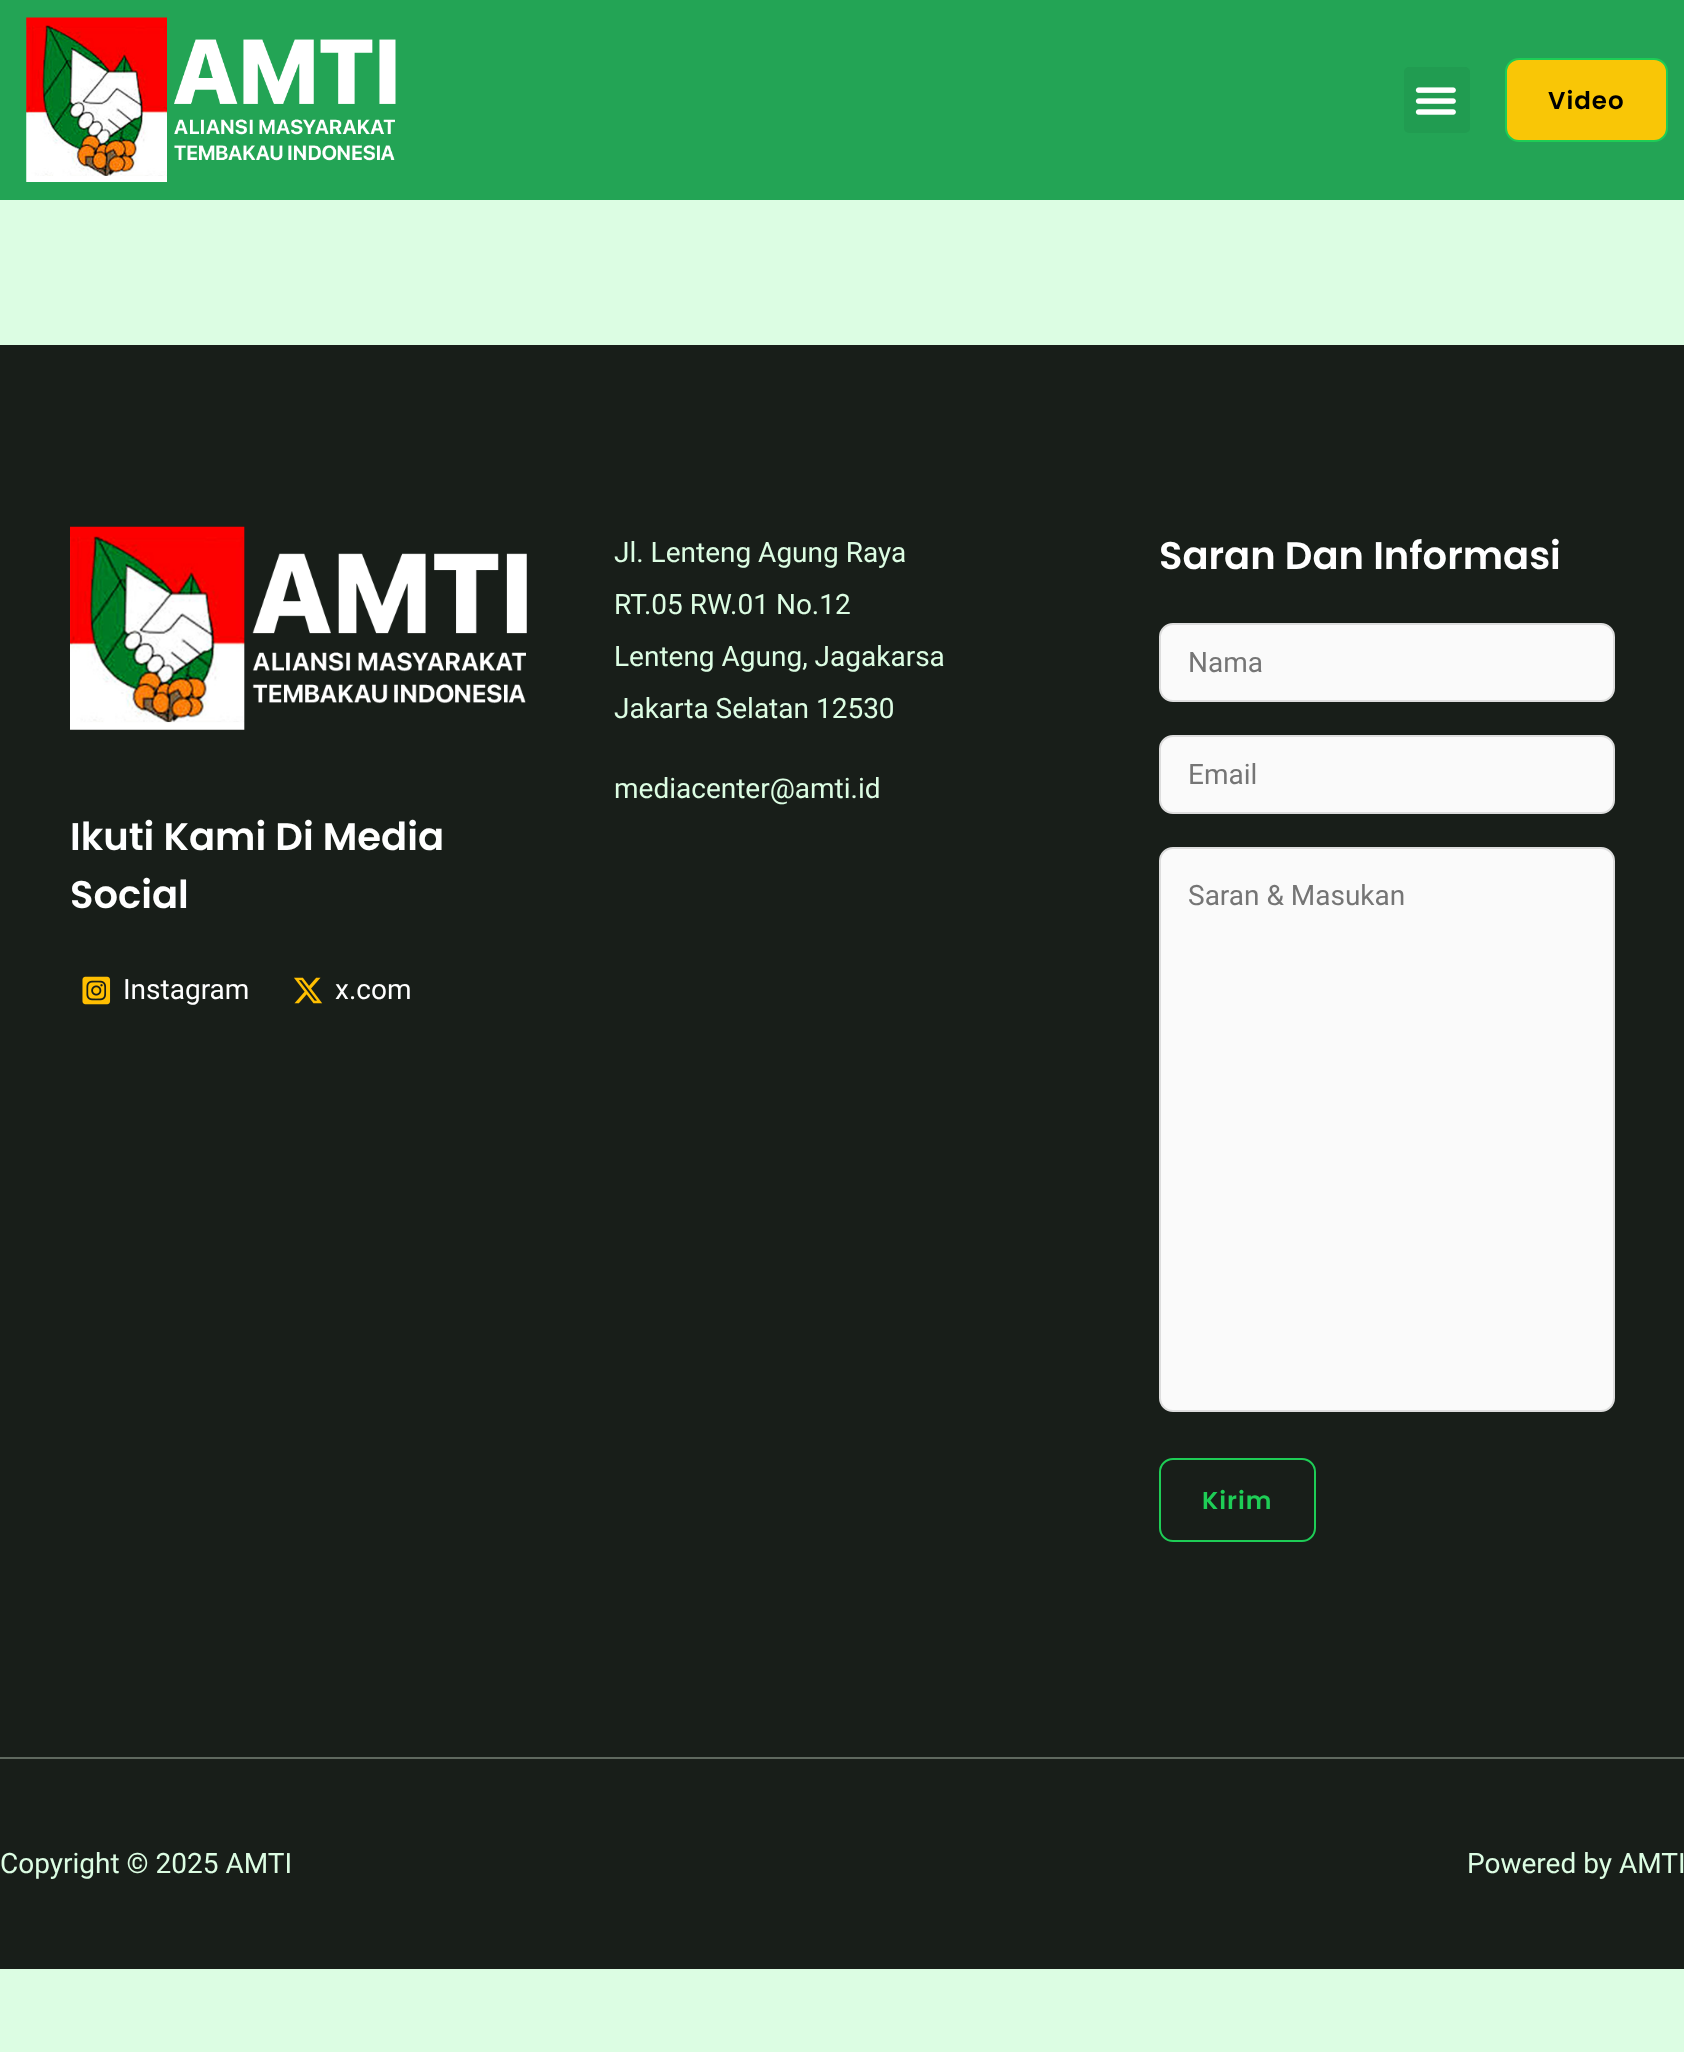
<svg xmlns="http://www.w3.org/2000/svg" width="1684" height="2052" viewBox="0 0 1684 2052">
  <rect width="100%" height="100%" fill="#dcfde3"/>
  <path d="M0 0h1684v200H0z" fill="#23a455"/>
  <image x="26" y="17" width="370" height="165" href="img/1.png"/>
  <rect x="1404" y="67" width="66" height="66" rx="5" fill="#219c51"/>
  <image x="1415" y="87" width="41" height="28" href="img/2.png"/>
  <rect x="1506" y="59" width="161" height="82" rx="13" fill="#f9c606" stroke="#1ecd56" stroke-width="2"/>
  <path d="M0 345h1684v1624H0z" fill="#181e19"/>
  <rect x="1160" y="624" width="454" height="77" rx="13" fill="#fafafa" stroke="#ddd" stroke-width="2"/>
  <rect x="1160" y="736" width="454" height="77" rx="13" fill="#fafafa" stroke="#ddd" stroke-width="2"/>
  <rect x="1160" y="848" width="454" height="563" rx="13" fill="#fafafa" stroke="#ddd" stroke-width="2"/>
  <rect x="1160" y="1459" width="155" height="82" rx="13" fill="none" stroke="#1ecd56" stroke-width="2"/>
  <image x="70" y="526" width="457" height="204" href="img/3.png"/>
  <image x="82" y="976" width="29" height="29" href="img/4.png"/>
  <image x="294" y="977" width="29" height="27" href="img/5.png"/>
  <path d="M0 1757h1684v2H0z" fill="#5f695f"/>
  <text x="1548" y="109" font-family="Poppins" font-size="24.5" font-weight="600" letter-spacing="1" fill="#000">Video</text>
  <g font-family="Roboto" font-size="28" fill="#dcfde3">
    <text x="614" y="562">Jl. Lenteng Agung Raya</text>
    <text x="614" y="614">RT.05 RW.01 No.12</text>
    <text x="614" y="666">Lenteng Agung, Jagakarsa</text>
    <text x="614" y="718">Jakarta Selatan 12530</text>
    <text x="614" y="798">mediacenter@amti.id</text>
  </g>
  <text x="1159" y="569" font-family="Poppins" font-size="38.5" font-weight="600" fill="#fff">Saran Dan Informasi</text>
  <g font-family="Roboto" font-size="28" fill="#757575">
    <text x="1188" y="672">Nama</text>
    <text x="1188" y="784">Email</text>
    <text x="1188" y="905">Saran &amp; Masukan</text>
  </g>
  <text x="1202" y="1509" font-family="Poppins" font-size="24.5" font-weight="600" letter-spacing="1" fill="#1ecd56">Kirim</text>
  <g font-family="Poppins" font-size="38.5" font-weight="600" fill="#fff">
    <text x="70" y="850">Ikuti Kami Di Media</text>
    <text x="70" y="908">Social</text>
  </g>
  <g font-family="Roboto" font-size="28" fill="#fff">
    <text x="123" y="999">Instagram</text>
    <text x="335" y="999">x.com</text>
  </g>
  <g font-family="Roboto" font-size="28" fill="#dcfde3">
    <text x="0" y="1873">Copyright © 2025 AMTI</text>
    <text x="1467" y="1873">Powered by AMTI</text>
  </g>
</svg>
